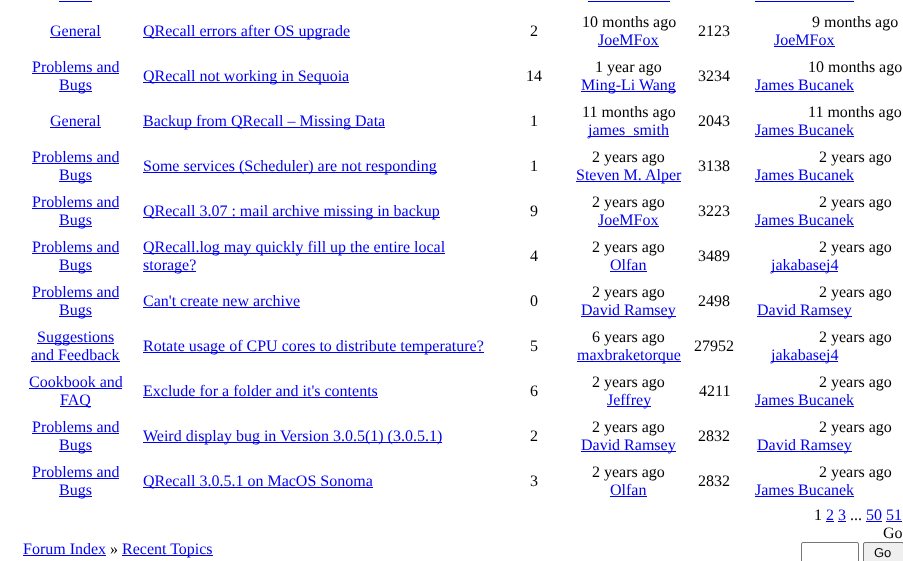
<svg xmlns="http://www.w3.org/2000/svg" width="903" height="561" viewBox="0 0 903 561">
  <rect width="100%" height="100%" fill="#fff"/>
  <path d="M59 1h33v1H59z" fill="#00e"/>
  <path d="M588 1h82v1H588z" fill="#00e"/>
  <path d="M755 1h99v1H755z" fill="#00e"/>
  <path d="M50 37h51v1H50z" fill="#00e"/>
  <path d="M143 37h207v1H143z" fill="#00e"/>
  <path d="M598 46h61v1H598z" fill="#00e"/>
  <path d="M774 46h61v1H774z" fill="#00e"/>
  <path d="M32 73h87v1H32z" fill="#00e"/>
  <path d="M59 91h33v1H59z" fill="#00e"/>
  <path d="M143 82h206v1H143z" fill="#00e"/>
  <path d="M581 91h95v1H581z" fill="#00e"/>
  <path d="M755 91h99v1H755z" fill="#00e"/>
  <path d="M50 127h51v1H50z" fill="#00e"/>
  <path d="M143 127h242v1H143z" fill="#00e"/>
  <path d="M588 136h81v1H588z" fill="#00e"/>
  <path d="M755 136h99v1H755z" fill="#00e"/>
  <path d="M32 163h87v1H32z" fill="#00e"/>
  <path d="M59 181h33v1H59z" fill="#00e"/>
  <path d="M143 172h294v1H143z" fill="#00e"/>
  <path d="M576 181h105v1H576z" fill="#00e"/>
  <path d="M755 181h99v1H755z" fill="#00e"/>
  <path d="M32 208h87v1H32z" fill="#00e"/>
  <path d="M59 226h33v1H59z" fill="#00e"/>
  <path d="M143 217h297v1H143z" fill="#00e"/>
  <path d="M598 226h61v1H598z" fill="#00e"/>
  <path d="M755 226h99v1H755z" fill="#00e"/>
  <path d="M32 253h87v1H32z" fill="#00e"/>
  <path d="M59 271h33v1H59z" fill="#00e"/>
  <path d="M143 253h302v1H143z" fill="#00e"/>
  <path d="M143 271h53v1H143z" fill="#00e"/>
  <path d="M610 271h37v1H610z" fill="#00e"/>
  <path d="M771 271h67v1H771z" fill="#00e"/>
  <path d="M32 298h87v1H32z" fill="#00e"/>
  <path d="M59 316h33v1H59z" fill="#00e"/>
  <path d="M143 307h157v1H143z" fill="#00e"/>
  <path d="M581 316h95v1H581z" fill="#00e"/>
  <path d="M757 316h95v1H757z" fill="#00e"/>
  <path d="M37 343h77v1H37z" fill="#00e"/>
  <path d="M31 361h89v1H31z" fill="#00e"/>
  <path d="M143 352h341v1H143z" fill="#00e"/>
  <path d="M577 361h104v1H577z" fill="#00e"/>
  <path d="M771 361h67v1H771z" fill="#00e"/>
  <path d="M29 388h93v1H29z" fill="#00e"/>
  <path d="M60 406h31v1H60z" fill="#00e"/>
  <path d="M143 397h235v1H143z" fill="#00e"/>
  <path d="M607 406h44v1H607z" fill="#00e"/>
  <path d="M755 406h99v1H755z" fill="#00e"/>
  <path d="M32 433h87v1H32z" fill="#00e"/>
  <path d="M59 451h33v1H59z" fill="#00e"/>
  <path d="M143 442h299v1H143z" fill="#00e"/>
  <path d="M581 451h95v1H581z" fill="#00e"/>
  <path d="M757 451h95v1H757z" fill="#00e"/>
  <path d="M32 478h87v1H32z" fill="#00e"/>
  <path d="M59 496h33v1H59z" fill="#00e"/>
  <path d="M143 487h230v1H143z" fill="#00e"/>
  <path d="M610 496h37v1H610z" fill="#00e"/>
  <path d="M755 496h99v1H755z" fill="#00e"/>
  <path d="M23 555h83v1H23z" fill="#00e"/>
  <path d="M122 555h91v1H122z" fill="#00e"/>
  <path d="M826 521h8v1H826z" fill="#00e"/>
  <path d="M866 521h16v1H866z" fill="#00e"/>
  <path d="M838 521h8v1H838z" fill="#00e"/>
  <path d="M886 521h16v1H886z" fill="#00e"/>
  <rect x="801.5" y="542.5" width="57" height="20" rx="1.5" fill="none" stroke="#767676"/>
  <rect x="863.5" y="542.5" width="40" height="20" rx="1.5" fill="#efefef" stroke="#767676"/>
  <g font-family="Liberation Serif" font-size="16" fill="#00e">
    <text x="50" y="36">General</text>
    <text x="143" y="36">QRecall errors after OS upgrade</text>
  </g>
  <g font-family="Liberation Serif" font-size="16" fill="#000">
    <text x="530" y="36">2</text>
    <text x="582" y="27">10 months ago</text>
  </g>
  <text x="598" y="45" font-family="Liberation Serif" font-size="16" fill="#00e">JoeMFox</text>
  <g font-family="Liberation Serif" font-size="16" fill="#000">
    <text x="698" y="36">2123</text>
    <text x="812" y="27">9 months ago</text>
  </g>
  <g font-family="Liberation Serif" font-size="16" fill="#00e">
    <text x="774" y="45">JoeMFox</text>
    <text x="32" y="72">Problems and</text>
    <text x="59" y="90">Bugs</text>
    <text x="143" y="81">QRecall not working in Sequoia</text>
  </g>
  <g font-family="Liberation Serif" font-size="16" fill="#000">
    <text x="526" y="81">14</text>
    <text x="595" y="72">1 year ago</text>
  </g>
  <text x="581" y="90" font-family="Liberation Serif" font-size="16" fill="#00e">Ming-Li Wang</text>
  <g font-family="Liberation Serif" font-size="16" fill="#000">
    <text x="698" y="81">3234</text>
    <text x="808" y="72">10 months ago</text>
  </g>
  <g font-family="Liberation Serif" font-size="16" fill="#00e">
    <text x="755" y="90">James Bucanek</text>
    <text x="50" y="126">General</text>
    <text x="143" y="126">Backup from QRecall – Missing Data</text>
  </g>
  <g font-family="Liberation Serif" font-size="16" fill="#000">
    <text x="530" y="126">1</text>
    <text x="582" y="117">11 months ago</text>
  </g>
  <text x="588" y="135" font-family="Liberation Serif" font-size="16" fill="#00e">james_smith</text>
  <g font-family="Liberation Serif" font-size="16" fill="#000">
    <text x="698" y="126">2043</text>
    <text x="808" y="117">11 months ago</text>
  </g>
  <g font-family="Liberation Serif" font-size="16" fill="#00e">
    <text x="755" y="135">James Bucanek</text>
    <text x="32" y="162">Problems and</text>
    <text x="59" y="180">Bugs</text>
    <text x="143" y="171">Some services (Scheduler) are not responding</text>
  </g>
  <g font-family="Liberation Serif" font-size="16" fill="#000">
    <text x="530" y="171">1</text>
    <text x="592" y="162">2 years ago</text>
  </g>
  <text x="576" y="180" font-family="Liberation Serif" font-size="16" fill="#00e">Steven M. Alper</text>
  <g font-family="Liberation Serif" font-size="16" fill="#000">
    <text x="698" y="171">3138</text>
    <text x="819" y="162">2 years ago</text>
  </g>
  <g font-family="Liberation Serif" font-size="16" fill="#00e">
    <text x="755" y="180">James Bucanek</text>
    <text x="32" y="207">Problems and</text>
    <text x="59" y="225">Bugs</text>
    <text x="143" y="216">QRecall 3.07 : mail archive missing in backup</text>
  </g>
  <g font-family="Liberation Serif" font-size="16" fill="#000">
    <text x="530" y="216">9</text>
    <text x="592" y="207">2 years ago</text>
  </g>
  <text x="598" y="225" font-family="Liberation Serif" font-size="16" fill="#00e">JoeMFox</text>
  <g font-family="Liberation Serif" font-size="16" fill="#000">
    <text x="698" y="216">3223</text>
    <text x="819" y="207">2 years ago</text>
  </g>
  <g font-family="Liberation Serif" font-size="16" fill="#00e">
    <text x="755" y="225">James Bucanek</text>
    <text x="32" y="252">Problems and</text>
    <text x="59" y="270">Bugs</text>
    <text x="143" y="252">QRecall.log may quickly fill up the entire local</text>
    <text x="143" y="270">storage?</text>
  </g>
  <g font-family="Liberation Serif" font-size="16" fill="#000">
    <text x="530" y="261">4</text>
    <text x="592" y="252">2 years ago</text>
  </g>
  <text x="610" y="270" font-family="Liberation Serif" font-size="16" fill="#00e">Olfan</text>
  <g font-family="Liberation Serif" font-size="16" fill="#000">
    <text x="698" y="261">3489</text>
    <text x="819" y="252">2 years ago</text>
  </g>
  <g font-family="Liberation Serif" font-size="16" fill="#00e">
    <text x="771" y="270">jakabasej4</text>
    <text x="32" y="297">Problems and</text>
    <text x="59" y="315">Bugs</text>
    <text x="143" y="306">Can't create new archive</text>
  </g>
  <g font-family="Liberation Serif" font-size="16" fill="#000">
    <text x="530" y="306">0</text>
    <text x="592" y="297">2 years ago</text>
  </g>
  <text x="581" y="315" font-family="Liberation Serif" font-size="16" fill="#00e">David Ramsey</text>
  <g font-family="Liberation Serif" font-size="16" fill="#000">
    <text x="698" y="306">2498</text>
    <text x="819" y="297">2 years ago</text>
  </g>
  <g font-family="Liberation Serif" font-size="16" fill="#00e">
    <text x="757" y="315">David Ramsey</text>
    <text x="37" y="342">Suggestions</text>
    <text x="31" y="360">and Feedback</text>
    <text x="143" y="351">Rotate usage of CPU cores to distribute temperature?</text>
  </g>
  <g font-family="Liberation Serif" font-size="16" fill="#000">
    <text x="530" y="351">5</text>
    <text x="592" y="342">6 years ago</text>
  </g>
  <text x="577" y="360" font-family="Liberation Serif" font-size="16" fill="#00e">maxbraketorque</text>
  <g font-family="Liberation Serif" font-size="16" fill="#000">
    <text x="694" y="351">27952</text>
    <text x="819" y="342">2 years ago</text>
  </g>
  <g font-family="Liberation Serif" font-size="16" fill="#00e">
    <text x="771" y="360">jakabasej4</text>
    <text x="29" y="387">Cookbook and</text>
    <text x="60" y="405">FAQ</text>
    <text x="143" y="396">Exclude for a folder and it's contents</text>
  </g>
  <g font-family="Liberation Serif" font-size="16" fill="#000">
    <text x="530" y="396">6</text>
    <text x="592" y="387">2 years ago</text>
  </g>
  <text x="607" y="405" font-family="Liberation Serif" font-size="16" fill="#00e">Jeffrey</text>
  <g font-family="Liberation Serif" font-size="16" fill="#000">
    <text x="699" y="396">4211</text>
    <text x="819" y="387">2 years ago</text>
  </g>
  <g font-family="Liberation Serif" font-size="16" fill="#00e">
    <text x="755" y="405">James Bucanek</text>
    <text x="32" y="432">Problems and</text>
    <text x="59" y="450">Bugs</text>
    <text x="143" y="441">Weird display bug in Version 3.0.5(1) (3.0.5.1)</text>
  </g>
  <g font-family="Liberation Serif" font-size="16" fill="#000">
    <text x="530" y="441">2</text>
    <text x="592" y="432">2 years ago</text>
  </g>
  <text x="581" y="450" font-family="Liberation Serif" font-size="16" fill="#00e">David Ramsey</text>
  <g font-family="Liberation Serif" font-size="16" fill="#000">
    <text x="698" y="441">2832</text>
    <text x="819" y="432">2 years ago</text>
  </g>
  <g font-family="Liberation Serif" font-size="16" fill="#00e">
    <text x="757" y="450">David Ramsey</text>
    <text x="32" y="477">Problems and</text>
    <text x="59" y="495">Bugs</text>
    <text x="143" y="486">QRecall 3.0.5.1 on MacOS Sonoma</text>
  </g>
  <g font-family="Liberation Serif" font-size="16" fill="#000">
    <text x="530" y="486">3</text>
    <text x="592" y="477">2 years ago</text>
  </g>
  <text x="610" y="495" font-family="Liberation Serif" font-size="16" fill="#00e">Olfan</text>
  <g font-family="Liberation Serif" font-size="16" fill="#000">
    <text x="698" y="486">2832</text>
    <text x="819" y="477">2 years ago</text>
  </g>
  <g font-family="Liberation Serif" font-size="16" fill="#00e">
    <text x="755" y="495">James Bucanek</text>
    <text x="23" y="554">Forum Index</text>
  </g>
  <text x="110" y="554" font-family="Liberation Serif" font-size="16" fill="#000">»</text>
  <text x="122" y="554" font-family="Liberation Serif" font-size="16" fill="#00e">Recent Topics</text>
  <text x="814" y="520" font-family="Liberation Serif" font-size="16" fill="#000">1</text>
  <text x="826" y="520" font-family="Liberation Serif" font-size="16" fill="#00e">2 3</text>
  <text x="850" y="520" font-family="Liberation Serif" font-size="16" fill="#000">...</text>
  <text x="866" y="520" font-family="Liberation Serif" font-size="16" fill="#00e">50 51</text>
  <text x="883" y="538" font-family="Liberation Serif" font-size="16" fill="#000">Go</text>
  <text x="874" y="557" font-family="Liberation Sans" font-size="13" fill="#000">Go</text>
</svg>
